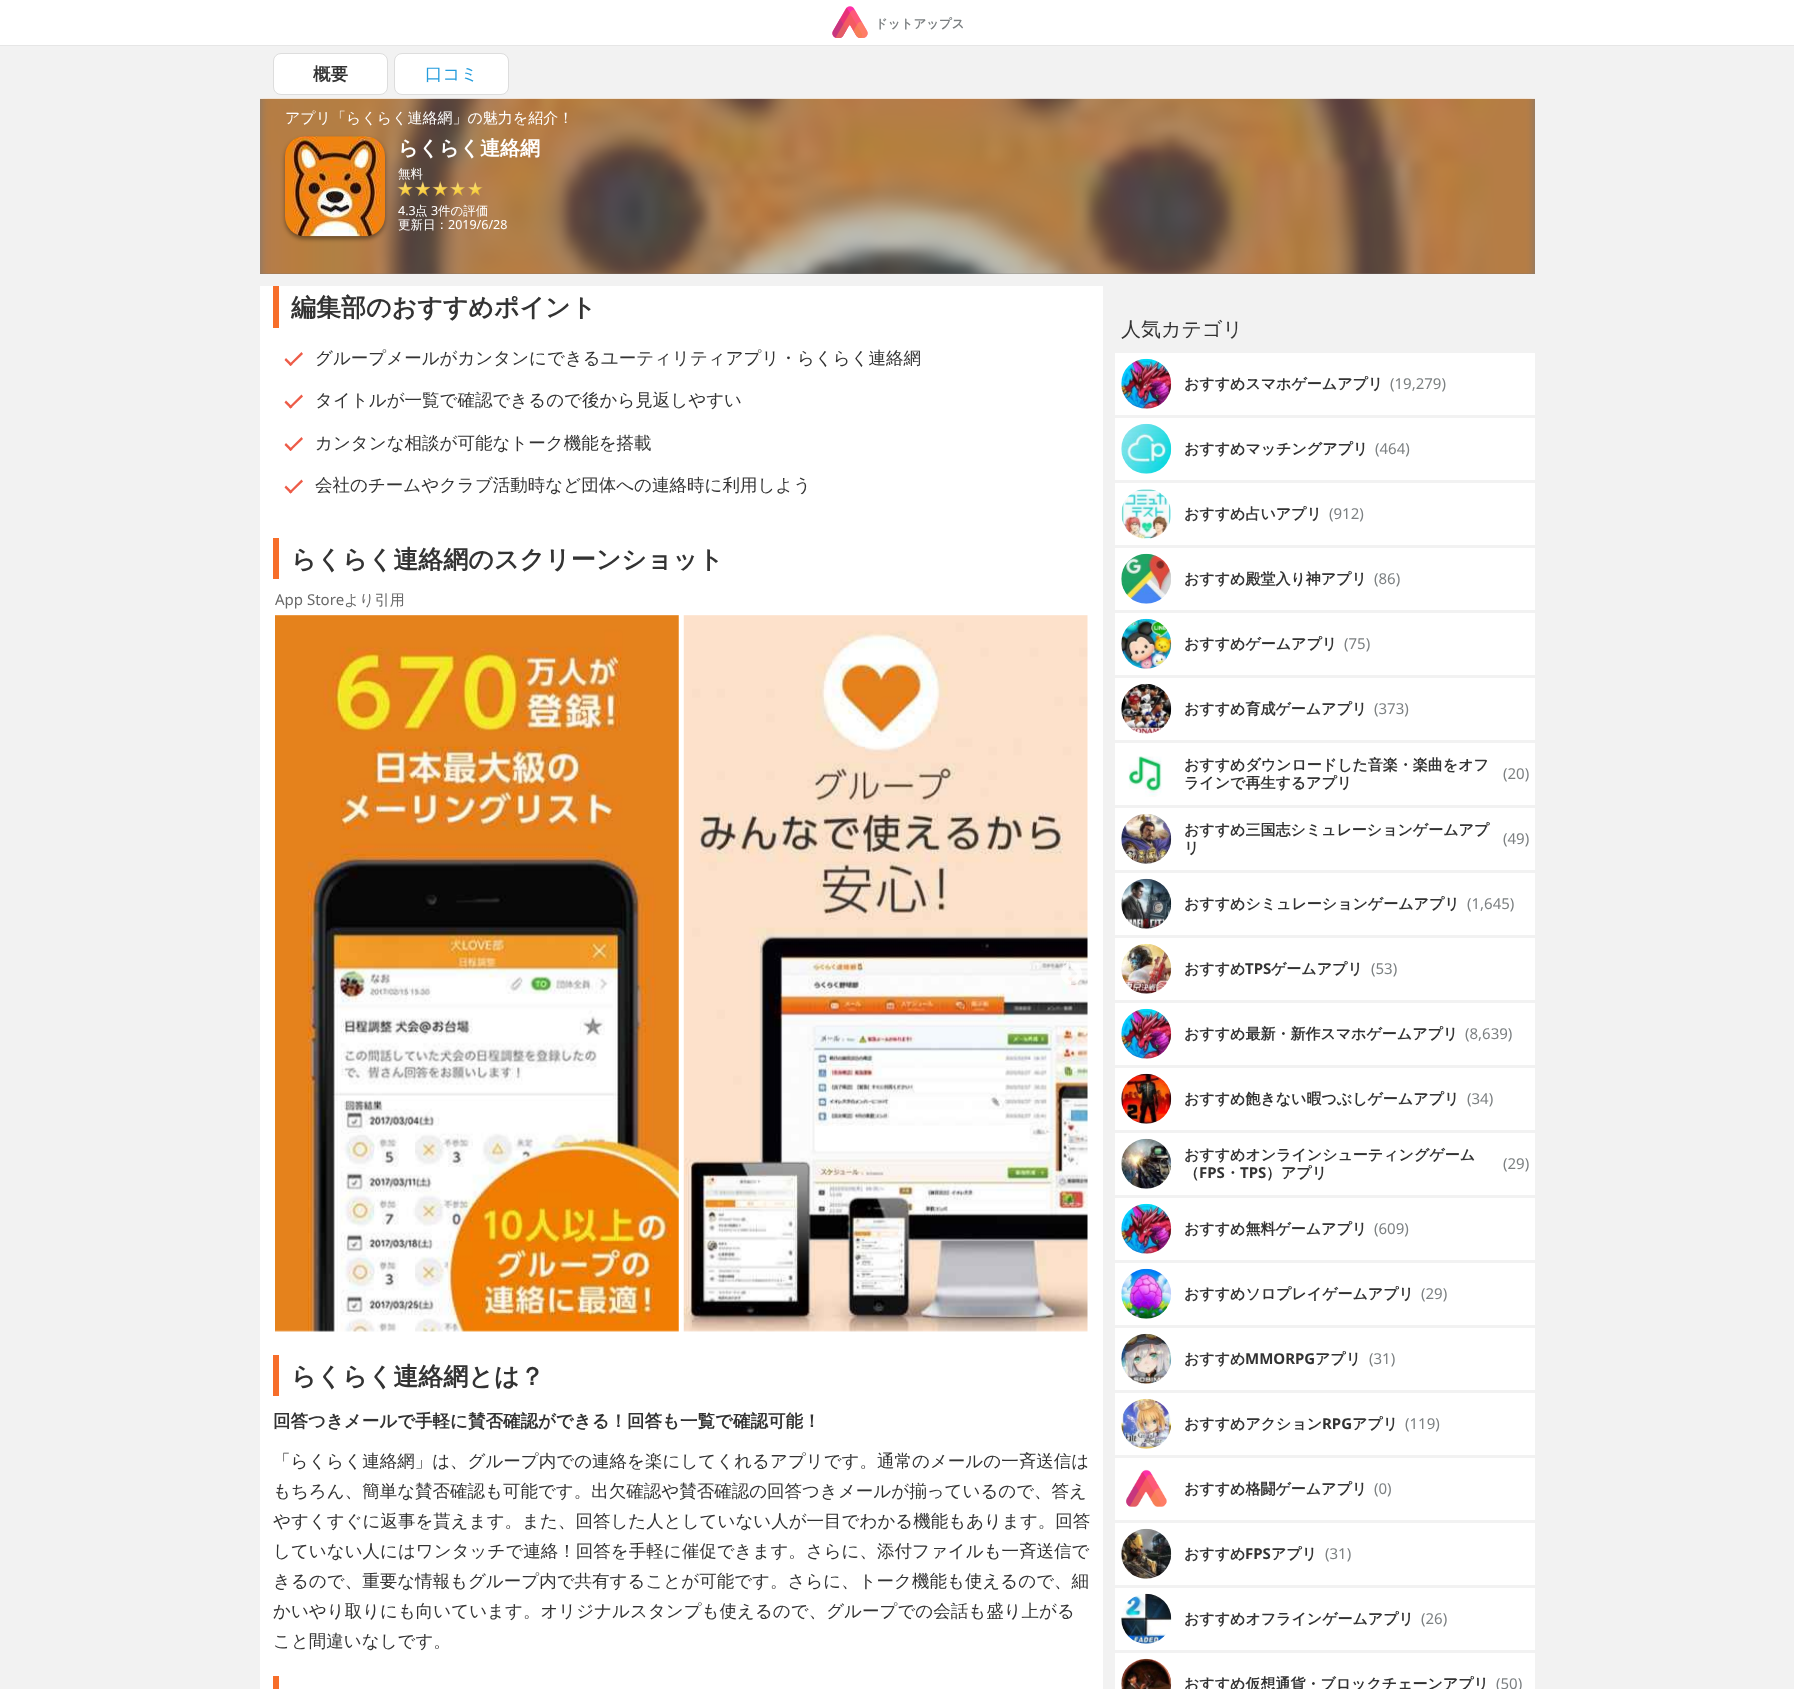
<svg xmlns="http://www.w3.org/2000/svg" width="1794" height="1689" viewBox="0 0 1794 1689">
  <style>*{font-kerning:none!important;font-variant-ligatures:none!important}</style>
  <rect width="100%" height="100%" fill="#f2f2f2"/>
  <path d="M0 0h1794v45H0z" fill="#fff"/>
  <path d="M0 45h1794v1H0z" fill="#e6e6e6"/>
  <image x="832" y="6" width="36" height="32" href="img/1.png"/>
  <rect x="273.5" y="53.5" width="114" height="41" rx="7.5" fill="#fff" stroke="#ddd"/>
  <rect x="394.5" y="53.5" width="114" height="41" rx="7.5" fill="#fff" stroke="#ddd"/>
  <path d="M260 99h1275v175H260z" fill="#797979"/>
  <image x="260" y="98" width="1275" height="176" href="img/2.png"/>
  <rect x="285" y="139" width="100" height="100" rx="20" fill="#00000066" filter="blur(2px)"/>
  <image x="285" y="136" width="100" height="101" href="img/3.png"/>
  <image x="397" y="181" width="16" height="16" href="img/4.png"/>
  <image x="415" y="181" width="15" height="16" href="img/5.png"/>
  <image x="432" y="181" width="16" height="16" href="img/6.png"/>
  <image x="450" y="181" width="15" height="15" href="img/7.png"/>
  <image x="467" y="181" width="16" height="15" href="img/8.png"/>
  <path d="M260 286h843v1403H260z" fill="#fff"/>
  <path d="M273 286h6v42H273z" fill="#f76e2a"/>
  <path d="M289 364.5L301.5 352L303 354L290.5 366Z" fill="#ed5c48"/>
  <path d="M284.5 360L286 358L292.5 364.5L290.5 366Z" fill="#ed5c48"/>
  <path d="M289 407L301.5 394.5L303 396.5L290.5 408.5Z" fill="#ed5c48"/>
  <path d="M284.5 402.5L286 400.5L292.5 407L290.5 408.5Z" fill="#ed5c48"/>
  <path d="M289 449.5L301.5 437L303 439L290.5 451Z" fill="#ed5c48"/>
  <path d="M284.5 445L286 443L292.5 449.5L290.5 451Z" fill="#ed5c48"/>
  <path d="M289 492L301.5 479.5L303 481.5L290.5 493.5Z" fill="#ed5c48"/>
  <path d="M284.5 487.5L286 485.5L292.5 492L290.5 493.5Z" fill="#ed5c48"/>
  <path d="M273 538h6v41H273z" fill="#f76e2a"/>
  <image x="275" y="615" width="404" height="717" href="img/9.png"/>
  <image x="683" y="615" width="405" height="717" href="img/10.png"/>
  <image x="1060" y="963" width="22" height="22" href="img/11.png"/>
  <path d="M273 1355h6v41H273z" fill="#f76e2a"/>
  <path d="M273 1676h6v13H273z" fill="#f76e2a"/>
  <path d="M1115 353h420v62H1115z" fill="#fff"/>
  <image x="1121" y="358" width="51" height="51" href="img/12.png"/>
  <path d="M1115 418h420v62H1115z" fill="#fff"/>
  <image x="1121" y="423" width="51" height="51" href="img/13.png"/>
  <path d="M1115 483h420v62H1115z" fill="#fff"/>
  <image x="1121" y="489" width="50" height="50" href="img/14.png"/>
  <path d="M1115 548h420v62H1115z" fill="#fff"/>
  <image x="1121" y="553" width="50" height="51" href="img/15.png"/>
  <path d="M1115 613h420v62H1115z" fill="#fff"/>
  <image x="1121" y="618" width="51" height="51" href="img/16.png"/>
  <path d="M1115 678h420v62H1115z" fill="#fff"/>
  <image x="1121" y="683" width="51" height="51" href="img/17.png"/>
  <path d="M1115 743h420v62H1115z" fill="#fff"/>
  <image x="1128" y="756" width="34" height="41" href="img/18.png"/>
  <path d="M1115 808h420v62H1115z" fill="#fff"/>
  <image x="1121" y="814" width="51" height="50" href="img/19.png"/>
  <path d="M1115 873h420v62H1115z" fill="#fff"/>
  <image x="1121" y="878" width="51" height="51" href="img/20.png"/>
  <path d="M1115 938h420v62H1115z" fill="#fff"/>
  <image x="1121" y="943" width="51" height="51" href="img/21.png"/>
  <path d="M1115 1003h420v62H1115z" fill="#fff"/>
  <image x="1121" y="1008" width="51" height="51" href="img/22.png"/>
  <path d="M1115 1068h420v62H1115z" fill="#fff"/>
  <image x="1121" y="1073" width="51" height="51" href="img/23.png"/>
  <path d="M1115 1133h420v62H1115z" fill="#fff"/>
  <image x="1121" y="1138" width="51" height="51" href="img/24.png"/>
  <path d="M1115 1198h420v62H1115z" fill="#fff"/>
  <image x="1121" y="1203" width="51" height="51" href="img/12.png"/>
  <path d="M1115 1263h420v62H1115z" fill="#fff"/>
  <image x="1121" y="1268" width="51" height="51" href="img/25.png"/>
  <path d="M1115 1328h420v62H1115z" fill="#fff"/>
  <image x="1121" y="1333" width="51" height="51" href="img/26.png"/>
  <path d="M1115 1393h420v62H1115z" fill="#fff"/>
  <image x="1121" y="1398" width="51" height="51" href="img/27.png"/>
  <path d="M1115 1458h420v62H1115z" fill="#fff"/>
  <image x="1126" y="1469" width="41" height="38" href="img/28.png"/>
  <path d="M1115 1523h420v62H1115z" fill="#fff"/>
  <image x="1121" y="1528" width="51" height="51" href="img/29.png"/>
  <path d="M1115 1588h420v62H1115z" fill="#fff"/>
  <image x="1121" y="1593" width="51" height="51" href="img/30.png"/>
  <path d="M1115 1653h420v36H1115z" fill="#fff"/>
  <image x="1121" y="1658" width="51" height="31" href="img/31.png"/>
  <text x="875" y="28" font-family="WenQuanYi Zen Hei" font-size="12.5" font-weight="bold" fill="#7c8082">ドットアップス</text>
  <text x="313" y="80" font-family="WenQuanYi Zen Hei" font-size="17.5" font-weight="bold" fill="#333">概要</text>
  <text x="425" y="80" font-family="WenQuanYi Zen Hei" font-size="17.5" font-weight="500" fill="#259cdc">口コミ</text>
  <text x="285" y="123" font-family="WenQuanYi Zen Hei" font-size="15" font-weight="500" fill="#fff">アプリ「らくらく連絡網」の魅力を紹介！</text>
  <text x="398" y="155" font-family="WenQuanYi Zen Hei" font-size="20" font-weight="bold" fill="#fff">らくらく連絡網</text>
  <text x="398" y="178" font-family="WenQuanYi Zen Hei" font-size="12.5" font-weight="500" fill="#fff">無料</text>
  <text x="398" y="215" font-family="Noto Sans" font-size="12.5" fill="#fff">4.3</text>
  <text x="415" y="215" font-family="WenQuanYi Zen Hei" font-size="12.5" font-weight="500" fill="#fff">点</text>
  <text x="431" y="215" font-family="Noto Sans" font-size="12.5" fill="#fff">3</text>
  <g font-family="WenQuanYi Zen Hei" font-size="12.5" font-weight="500" fill="#fff">
    <text x="438" y="215">件の評価</text>
    <text x="398" y="229">更新日：</text>
  </g>
  <text x="448" y="229" font-family="Noto Sans" font-size="12.5" fill="#fff">2019/6/28</text>
  <text x="291" y="316" font-family="WenQuanYi Zen Hei" font-size="25" font-weight="bold" fill="#333">編集部のおすすめポイント</text>
  <g font-family="WenQuanYi Zen Hei" font-size="17.5" font-weight="500" fill="#333">
    <text x="315" y="364">グループメールがカンタンにできるユーティリティアプリ・らくらく連絡網</text>
    <text x="315" y="406">タイトルが一覧で確認できるので後から見返しやすい</text>
    <text x="315" y="449">カンタンな相談が可能なトーク機能を搭載</text>
    <text x="315" y="491">会社のチームやクラブ活動時など団体への連絡時に利用しよう</text>
  </g>
  <text x="291" y="568" font-family="WenQuanYi Zen Hei" font-size="25" font-weight="bold" fill="#333">らくらく連絡網のスクリーンショット</text>
  <text x="275" y="605" font-family="Noto Sans" font-size="15" fill="#696969">App Store</text>
  <text x="344" y="605" font-family="WenQuanYi Zen Hei" font-size="15" font-weight="500" fill="#696969">より引用</text>
  <text x="291" y="1385" font-family="WenQuanYi Zen Hei" font-size="25" font-weight="bold" fill="#333">らくらく連絡網とは？</text>
  <text x="273" y="1427" font-family="WenQuanYi Zen Hei" font-size="17.5" font-weight="bold" fill="#333">回答つきメールで手軽に賛否確認ができる！回答も一覧で確認可能！</text>
  <g font-family="WenQuanYi Zen Hei" font-size="17.5" font-weight="500" fill="#333">
    <text x="273" y="1467">「らくらく連絡網」は、グループ内での連絡を楽にしてくれるアプリです。通常のメールの一斉送信は</text>
    <text x="273" y="1497">もちろん、簡単な賛否確認も可能です。出欠確認や賛否確認の回答つきメールが揃っているので、答え</text>
    <text x="273" y="1527">やすくすぐに返事を貰えます。また、回答した人としていない人が一目でわかる機能もあります。回答</text>
    <text x="273" y="1557">していない人にはワンタッチで連絡！回答を手軽に催促できます。さらに、添付ファイルも一斉送信で</text>
    <text x="273" y="1587">きるので、重要な情報もグループ内で共有することが可能です。さらに、トーク機能も使えるので、細</text>
    <text x="273" y="1617">かいやり取りにも向いています。オリジナルスタンプも使えるので、グループでの会話も盛り上がる</text>
    <text x="273" y="1647">こと間違いなしです。</text>
  </g>
  <text x="1121" y="336" font-family="WenQuanYi Zen Hei" font-size="20" font-weight="500" fill="#333">人気カテゴリ</text>
  <text x="1184" y="389" font-family="WenQuanYi Zen Hei" font-size="15" font-weight="bold" fill="#333">おすすめスマホゲームアプリ</text>
  <text x="1390" y="389" font-family="Noto Sans" font-size="15" fill="#7c8082">(19,279)</text>
  <text x="1184" y="454" font-family="WenQuanYi Zen Hei" font-size="15" font-weight="bold" fill="#333">おすすめマッチングアプリ</text>
  <text x="1375" y="454" font-family="Noto Sans" font-size="15" fill="#7c8082">(464)</text>
  <text x="1184" y="519" font-family="WenQuanYi Zen Hei" font-size="15" font-weight="bold" fill="#333">おすすめ占いアプリ</text>
  <text x="1329" y="519" font-family="Noto Sans" font-size="15" fill="#7c8082">(912)</text>
  <text x="1184" y="584" font-family="WenQuanYi Zen Hei" font-size="15" font-weight="bold" fill="#333">おすすめ殿堂入り神アプリ</text>
  <text x="1374" y="584" font-family="Noto Sans" font-size="15" fill="#7c8082">(86)</text>
  <text x="1184" y="649" font-family="WenQuanYi Zen Hei" font-size="15" font-weight="bold" fill="#333">おすすめゲームアプリ</text>
  <text x="1344" y="649" font-family="Noto Sans" font-size="15" fill="#7c8082">(75)</text>
  <text x="1184" y="714" font-family="WenQuanYi Zen Hei" font-size="15" font-weight="bold" fill="#333">おすすめ育成ゲームアプリ</text>
  <text x="1374" y="714" font-family="Noto Sans" font-size="15" fill="#7c8082">(373)</text>
  <g font-family="WenQuanYi Zen Hei" font-size="15" font-weight="bold" fill="#333">
    <text x="1184" y="770">おすすめダウンロードした音楽・楽曲をオフ</text>
    <text x="1184" y="788">ラインで再生するアプリ</text>
  </g>
  <text x="1503" y="779" font-family="Noto Sans" font-size="15" fill="#7c8082">(20)</text>
  <g font-family="WenQuanYi Zen Hei" font-size="15" font-weight="bold" fill="#333">
    <text x="1184" y="835">おすすめ三国志シミュレーションゲームアプ</text>
    <text x="1184" y="853">リ</text>
  </g>
  <text x="1503" y="844" font-family="Noto Sans" font-size="15" fill="#7c8082">(49)</text>
  <text x="1184" y="909" font-family="WenQuanYi Zen Hei" font-size="15" font-weight="bold" fill="#333">おすすめシミュレーションゲームアプリ</text>
  <text x="1467" y="909" font-family="Noto Sans" font-size="15" fill="#7c8082">(1,645)</text>
  <text x="1184" y="974" font-family="WenQuanYi Zen Hei" font-size="15" font-weight="bold" fill="#333">おすすめ</text>
  <text x="1245" y="974" font-family="Noto Sans" font-size="15" font-weight="bold" fill="#333">TPS</text>
  <text x="1271" y="974" font-family="WenQuanYi Zen Hei" font-size="15" font-weight="bold" fill="#333">ゲームアプリ</text>
  <text x="1371" y="974" font-family="Noto Sans" font-size="15" fill="#7c8082">(53)</text>
  <text x="1184" y="1039" font-family="WenQuanYi Zen Hei" font-size="15" font-weight="bold" fill="#333">おすすめ最新・新作スマホゲームアプリ</text>
  <text x="1465" y="1039" font-family="Noto Sans" font-size="15" fill="#7c8082">(8,639)</text>
  <text x="1184" y="1104" font-family="WenQuanYi Zen Hei" font-size="15" font-weight="bold" fill="#333">おすすめ飽きない暇つぶしゲームアプリ</text>
  <text x="1467" y="1104" font-family="Noto Sans" font-size="15" fill="#7c8082">(34)</text>
  <g font-family="WenQuanYi Zen Hei" font-size="15" font-weight="bold" fill="#333">
    <text x="1184" y="1160">おすすめオンラインシューティングゲーム</text>
    <text x="1184" y="1178">（</text>
  </g>
  <text x="1199" y="1178" font-family="Noto Sans" font-size="15" font-weight="bold" fill="#333">FPS</text>
  <text x="1225" y="1178" font-family="WenQuanYi Zen Hei" font-size="15" font-weight="bold" fill="#333">・</text>
  <text x="1240" y="1178" font-family="Noto Sans" font-size="15" font-weight="bold" fill="#333">TPS</text>
  <text x="1266" y="1178" font-family="WenQuanYi Zen Hei" font-size="15" font-weight="bold" fill="#333">）アプリ</text>
  <text x="1503" y="1169" font-family="Noto Sans" font-size="15" fill="#7c8082">(29)</text>
  <text x="1184" y="1234" font-family="WenQuanYi Zen Hei" font-size="15" font-weight="bold" fill="#333">おすすめ無料ゲームアプリ</text>
  <text x="1374" y="1234" font-family="Noto Sans" font-size="15" fill="#7c8082">(609)</text>
  <text x="1184" y="1299" font-family="WenQuanYi Zen Hei" font-size="15" font-weight="bold" fill="#333">おすすめソロプレイゲームアプリ</text>
  <text x="1421" y="1299" font-family="Noto Sans" font-size="15" fill="#7c8082">(29)</text>
  <text x="1184" y="1364" font-family="WenQuanYi Zen Hei" font-size="15" font-weight="bold" fill="#333">おすすめ</text>
  <text x="1245" y="1364" font-family="Noto Sans" font-size="15" font-weight="bold" fill="#333">MMORPG</text>
  <text x="1315" y="1364" font-family="WenQuanYi Zen Hei" font-size="15" font-weight="bold" fill="#333">アプリ</text>
  <text x="1369" y="1364" font-family="Noto Sans" font-size="15" fill="#7c8082">(31)</text>
  <text x="1184" y="1429" font-family="WenQuanYi Zen Hei" font-size="15" font-weight="bold" fill="#333">おすすめアクション</text>
  <text x="1322" y="1429" font-family="Noto Sans" font-size="15" font-weight="bold" fill="#333">RPG</text>
  <text x="1352" y="1429" font-family="WenQuanYi Zen Hei" font-size="15" font-weight="bold" fill="#333">アプリ</text>
  <text x="1405" y="1429" font-family="Noto Sans" font-size="15" fill="#7c8082">(119)</text>
  <text x="1184" y="1494" font-family="WenQuanYi Zen Hei" font-size="15" font-weight="bold" fill="#333">おすすめ格闘ゲームアプリ</text>
  <text x="1374" y="1494" font-family="Noto Sans" font-size="15" fill="#7c8082">(0)</text>
  <text x="1184" y="1559" font-family="WenQuanYi Zen Hei" font-size="15" font-weight="bold" fill="#333">おすすめ</text>
  <text x="1245" y="1559" font-family="Noto Sans" font-size="15" font-weight="bold" fill="#333">FPS</text>
  <text x="1271" y="1559" font-family="WenQuanYi Zen Hei" font-size="15" font-weight="bold" fill="#333">アプリ</text>
  <text x="1325" y="1559" font-family="Noto Sans" font-size="15" fill="#7c8082">(31)</text>
  <text x="1184" y="1624" font-family="WenQuanYi Zen Hei" font-size="15" font-weight="bold" fill="#333">おすすめオフラインゲームアプリ</text>
  <text x="1421" y="1624" font-family="Noto Sans" font-size="15" fill="#7c8082">(26)</text>
  <text x="1184" y="1689" font-family="WenQuanYi Zen Hei" font-size="15" font-weight="bold" fill="#333">おすすめ仮想通貨・ブロックチェーンアプリ</text>
  <text x="1496" y="1689" font-family="Noto Sans" font-size="15" fill="#7c8082">(50)</text>
</svg>
